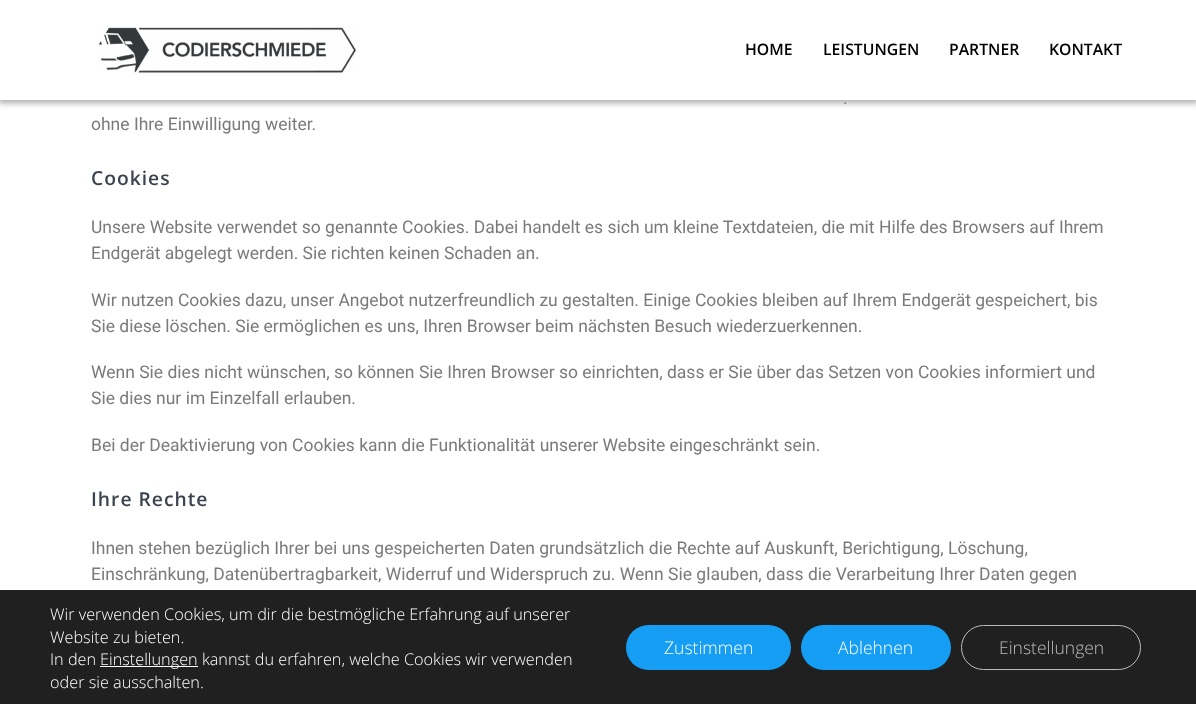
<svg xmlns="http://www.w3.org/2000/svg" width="1196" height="704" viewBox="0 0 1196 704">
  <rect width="100%" height="100%" fill="#fff"/>
  <path d="M-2 -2h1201v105H-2z" fill="#00000054" filter="blur(3px)"/>
  <path d="M0 0h1196v100H0z" fill="#fff"/>
  <image x="98" y="27" width="259" height="46" href="img/1.png"/>
  <path d="M0 590h1196v114H0z" fill="#202020"/>
  <path d="M100 666h98v1H100z" fill="#fff"/>
  <rect x="626" y="625" width="165" height="45" rx="22.5" fill="#159ef3"/>
  <rect x="801" y="625" width="150" height="45" rx="22.5" fill="#159ef3"/>
  <rect x="961.5" y="625.5" width="179" height="44" rx="22" fill="none" stroke="#bcbcbc"/>
  <g font-family="Open Sans" font-size="15.75" font-weight="600" fill="#000">
    <text x="745" y="55">HOME</text>
    <text x="823" y="55">LEISTUNGEN</text>
    <text x="949" y="55">PARTNER</text>
    <text x="1049" y="55">KONTAKT</text>
  </g>
  <g font-family="Roboto" font-size="17.5" fill="#7a7a7a">
    <text x="843" y="104">.</text>
    <text x="91" y="130">ohne Ihre Einwilligung weiter.</text>
  </g>
  <text x="91" y="185" font-family="Open Sans" font-size="19.25" font-weight="600" letter-spacing="1" fill="#3c424f">Cookies</text>
  <g font-family="Roboto" font-size="17.5" fill="#7a7a7a">
    <text x="91" y="233">Unsere Website verwendet so genannte Cookies. Dabei handelt es sich um kleine Textdateien, die mit Hilfe des Browsers auf Ihrem</text>
    <text x="91" y="259">Endgerät abgelegt werden. Sie richten keinen Schaden an.</text>
    <text x="91" y="306">Wir nutzen Cookies dazu, unser Angebot nutzerfreundlich zu gestalten. Einige Cookies bleiben auf Ihrem Endgerät gespeichert, bis</text>
    <text x="91" y="332">Sie diese löschen. Sie ermöglichen es uns, Ihren Browser beim nächsten Besuch wiederzuerkennen.</text>
    <text x="91" y="378">Wenn Sie dies nicht wünschen, so können Sie Ihren Browser so einrichten, dass er Sie über das Setzen von Cookies informiert und</text>
    <text x="91" y="404">Sie dies nur im Einzelfall erlauben.</text>
    <text x="91" y="451">Bei der Deaktivierung von Cookies kann die Funktionalität unserer Website eingeschränkt sein.</text>
  </g>
  <text x="91" y="506" font-family="Open Sans" font-size="19.25" font-weight="600" letter-spacing="1" fill="#3c424f">Ihre Rechte</text>
  <g font-family="Roboto" font-size="17.5" fill="#7a7a7a">
    <text x="91" y="554">Ihnen stehen bezüglich Ihrer bei uns gespeicherten Daten grundsätzlich die Rechte auf Auskunft, Berichtigung, Löschung,</text>
    <text x="91" y="580">Einschränkung, Datenübertragbarkeit, Widerruf und Widerspruch zu. Wenn Sie glauben, dass die Verarbeitung Ihrer Daten gegen</text>
  </g>
  <g font-family="Open Sans" font-size="16.25" font-weight="300" fill="#fff">
    <text x="50" y="620">Wir verwenden Cookies, um dir die bestmögliche Erfahrung auf unserer</text>
    <text x="50" y="643">Website zu bieten.</text>
    <text x="50" y="665">In den</text>
    <text x="100" y="665">Einstellungen kannst du erfahren, welche Cookies wir verwenden</text>
    <text x="50" y="688">oder sie ausschalten.</text>
  </g>
  <g font-family="Open Sans" font-size="17.5" font-weight="300" fill="#fff">
    <text x="664" y="654">Zustimmen</text>
    <text x="838" y="654">Ablehnen</text>
  </g>
  <text x="999" y="654" font-family="Open Sans" font-size="17.5" font-weight="300" fill="#bcbcbc">Einstellungen</text>
</svg>
